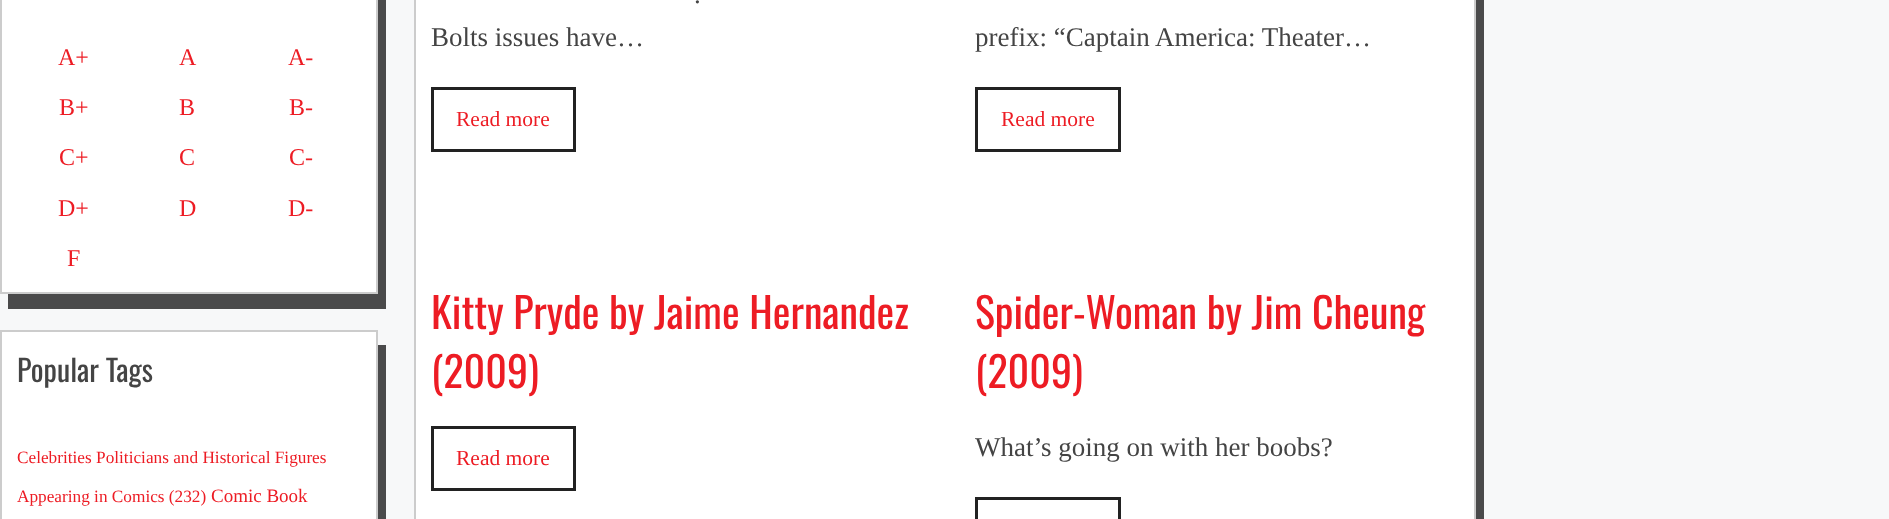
<svg xmlns="http://www.w3.org/2000/svg" width="1889" height="519" viewBox="0 0 1889 519">
  <rect width="100%" height="100%" fill="#f7f8f9"/>
  <path d="M8 294V309H386V-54H378V294Z" fill="#4a4a4b"/>
  <path d="M1 -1h376v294H1z" fill="#fff" stroke="#ccc" stroke-width="2"/>
  <path d="M8 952V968H386V345H378V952Z" fill="#4a4a4b"/>
  <path d="M1 331h376v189H1z" fill="#fff" stroke="#ccc" stroke-width="2"/>
  <path d="M422 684V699H1484V-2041H1476V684Z" fill="#4a4a4b"/>
  <path d="M415 -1h1060v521H415z" fill="#fff" stroke="#ccc" stroke-width="2"/>
  <path d="M432.5 88.5h142v62H432.5z" fill="none" stroke="#222" stroke-width="3"/>
  <path d="M976.5 88.5h143v62H976.5z" fill="none" stroke="#222" stroke-width="3"/>
  <path d="M432.5 427.5h142v62H432.5z" fill="none" stroke="#222" stroke-width="3"/>
  <path d="M976.5 498.5h143v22H976.5z" fill="none" stroke="#222" stroke-width="3"/>
  <g font-family="Liberation Serif" font-size="24" fill="#ed1c24">
    <text x="58" y="65">A+</text>
    <text x="179" y="65">A</text>
    <text x="288" y="65">A-</text>
    <text x="59" y="115">B+</text>
    <text x="179" y="115">B</text>
    <text x="289" y="115">B-</text>
    <text x="59" y="165">C+</text>
    <text x="179" y="165">C</text>
    <text x="289" y="165">C-</text>
    <text x="58" y="216">D+</text>
    <text x="179" y="216">D</text>
    <text x="288" y="216">D-</text>
    <text x="67" y="266">F</text>
  </g>
  <text x="17" y="382" font-family="Oswald" font-size="30" fill="#444">Popular Tags</text>
  <g font-family="Liberation Serif" font-size="17.25" fill="#ed1c24">
    <text x="17" y="463">Celebrities Politicians and Historical Figures</text>
    <text x="17" y="502">Appearing in Comics (232)</text>
  </g>
  <text x="211" y="502" font-family="Liberation Serif" font-size="19" fill="#ed1c24">Comic Book</text>
  <g font-family="Liberation Serif" font-size="27" fill="#444">
    <text x="694" y="3">.</text>
    <text x="431" y="46">Bolts issues have…</text>
  </g>
  <text x="456" y="126" font-family="Liberation Serif" font-size="21.5" fill="#ed1c24">Read more</text>
  <text x="975" y="46" font-family="Liberation Serif" font-size="27" fill="#444">prefix: “Captain America: Theater…</text>
  <text x="1001" y="126" font-family="Liberation Serif" font-size="21.5" fill="#ed1c24">Read more</text>
  <g font-family="Oswald" font-size="42" fill="#ed1c24">
    <text x="431" y="329">Kitty Pryde by Jaime Hernandez</text>
    <text x="431" y="388">(2009)</text>
  </g>
  <text x="456" y="465" font-family="Liberation Serif" font-size="21.5" fill="#ed1c24">Read more</text>
  <g font-family="Oswald" font-size="42" fill="#ed1c24">
    <text x="975" y="329">Spider-Woman by Jim Cheung</text>
    <text x="975" y="388">(2009)</text>
  </g>
  <text x="975" y="456" font-family="Liberation Serif" font-size="27" fill="#444">What’s going on with her boobs?</text>
</svg>
